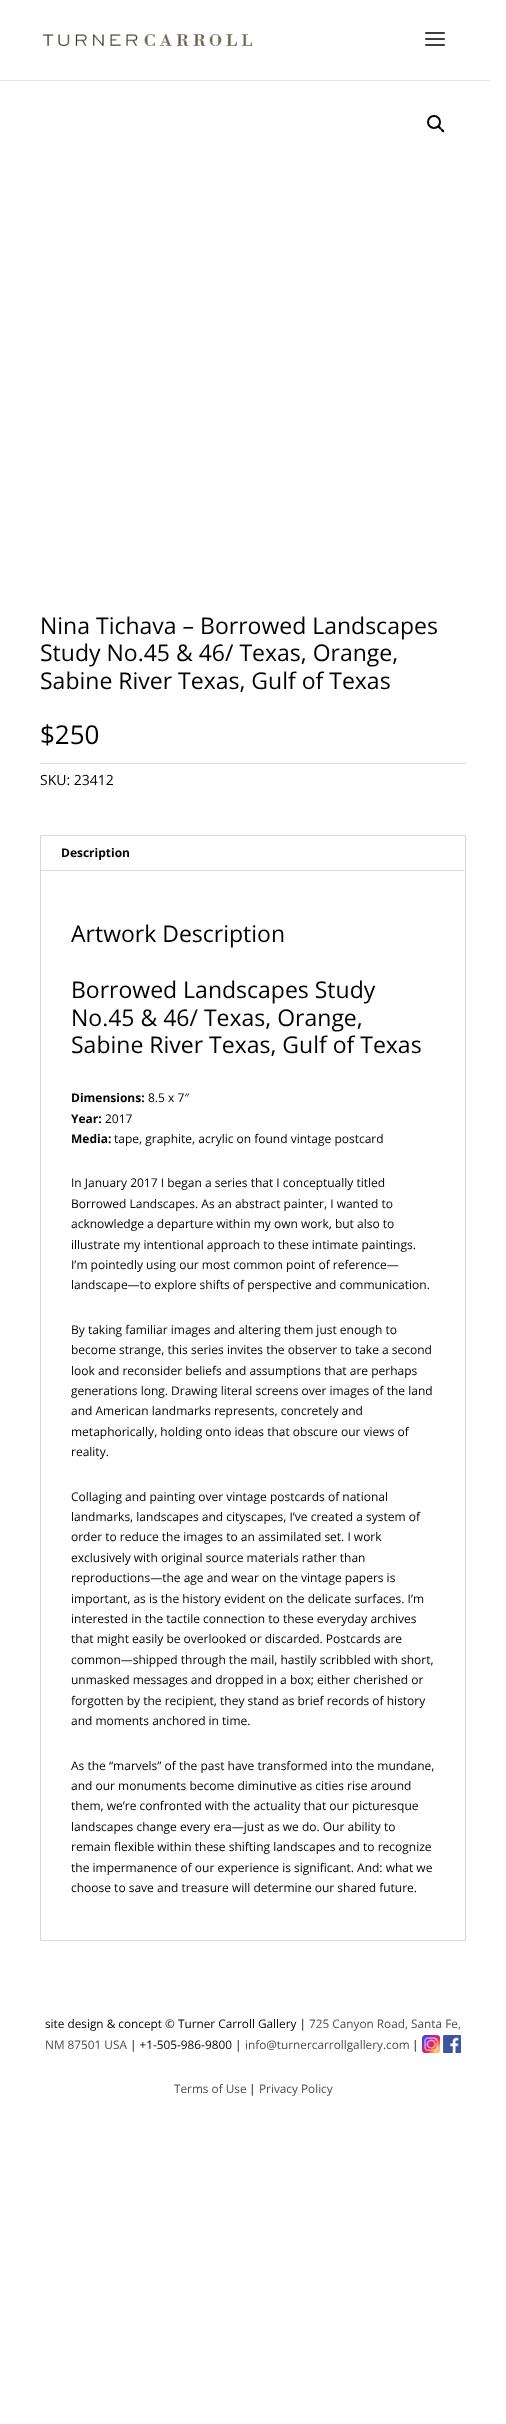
<svg xmlns="http://www.w3.org/2000/svg" width="506" height="2424" viewBox="0 0 506 2424">
  <rect width="100%" height="100%" fill="#fff"/>
  <path d="M0 80h491v1H0z" fill="#e6e6e6"/>
  <image x="43" y="34" width="209" height="12" href="img/1.png"/>
  <image x="425" y="32" width="20" height="14" href="img/2.png"/>
  <circle cx="434" cy="122" r="6" fill="none" stroke="#000" stroke-width="2"/>
  <path d="M438 126C439.5 125 441 127.5 441.5 128.5C442.5 129 445 130.5 444 132C442.5 133 441 130.5 440.5 129.5C439.5 129 437 127.5 438 126Z" fill="#000"/>
  <path d="M40 763h426v1H40z" fill="#dadada"/>
  <path d="M40.5 835.5h425v1105H40.5z" fill="none" stroke="#d9d9d9"/>
  <path d="M41 870h424v1H41z" fill="#e0dadf"/>
  <image x="422" y="2035" width="18" height="18" href="img/3.png"/>
  <image x="443" y="2035" width="18" height="18" href="img/4.png"/>
  <g font-family="Open Sans" font-size="23" fill="#000">
    <text x="40" y="634">Nina Tichava – Borrowed Landscapes</text>
    <text x="40" y="661">Study No.45 &amp; 46/ Texas, Orange,</text>
    <text x="40" y="689">Sabine River Texas, Gulf of Texas</text>
  </g>
  <text x="40" y="744" font-family="Open Sans" font-size="26" fill="#000">$250</text>
  <text x="40" y="785" font-family="Open Sans" font-size="14" fill="#000">SKU: 23412</text>
  <text x="61" y="857" font-family="Open Sans" font-size="12" font-weight="bold" fill="#000">Description</text>
  <g font-family="Open Sans" font-size="23" fill="#000">
    <text x="71" y="942">Artwork Description</text>
    <text x="71" y="998">Borrowed Landscapes Study</text>
    <text x="71" y="1026">No.45 &amp; 46/ Texas, Orange,</text>
    <text x="71" y="1053">Sabine River Texas, Gulf of Texas</text>
  </g>
  <text x="71" y="1102" font-family="Open Sans" font-size="12" font-weight="bold" fill="#000">Dimensions:</text>
  <text x="148" y="1102" font-family="Open Sans" font-size="12" fill="#000">8.5 x 7″</text>
  <text x="71" y="1123" font-family="Open Sans" font-size="12" font-weight="bold" fill="#000">Year:</text>
  <text x="105" y="1123" font-family="Open Sans" font-size="12" fill="#000">2017</text>
  <text x="71" y="1143" font-family="Open Sans" font-size="12" font-weight="bold" fill="#000">Media:</text>
  <g font-family="Open Sans" font-size="12" fill="#000">
    <text x="114" y="1143">tape, graphite, acrylic on found vintage postcard</text>
    <text x="71" y="1187">In January 2017 I began a series that I conceptually titled</text>
    <text x="71" y="1208">Borrowed Landscapes. As an abstract painter, I wanted to</text>
    <text x="71" y="1228">acknowledge a departure within my own work, but also to</text>
    <text x="71" y="1249">illustrate my intentional approach to these intimate paintings.</text>
    <text x="71" y="1269">I’m pointedly using our most common point of reference—</text>
    <text x="71" y="1289">landscape—to explore shifts of perspective and communication.</text>
    <text x="71" y="1334">By taking familiar images and altering them just enough to</text>
    <text x="71" y="1354">become strange, this series invites the observer to take a second</text>
    <text x="71" y="1375">look and reconsider beliefs and assumptions that are perhaps</text>
    <text x="71" y="1395">generations long. Drawing literal screens over images of the land</text>
    <text x="71" y="1415">and American landmarks represents, concretely and</text>
    <text x="71" y="1436">metaphorically, holding onto ideas that obscure our views of</text>
    <text x="71" y="1456">reality.</text>
    <text x="71" y="1501">Collaging and painting over vintage postcards of national</text>
    <text x="71" y="1521">landmarks, landscapes and cityscapes, I’ve created a system of</text>
    <text x="71" y="1541">order to reduce the images to an assimilated set. I work</text>
    <text x="71" y="1562">exclusively with original source materials rather than</text>
    <text x="71" y="1582">reproductions—the age and wear on the vintage papers is</text>
    <text x="71" y="1603">important, as is the history evident on the delicate surfaces. I’m</text>
    <text x="71" y="1623">interested in the tactile connection to these everyday archives</text>
    <text x="71" y="1643">that might easily be overlooked or discarded. Postcards are</text>
    <text x="71" y="1664">common—shipped through the mail, hastily scribbled with short,</text>
    <text x="71" y="1684">unmasked messages and dropped in a box; either cherished or</text>
    <text x="71" y="1705">forgotten by the recipient, they stand as brief records of history</text>
    <text x="71" y="1725">and moments anchored in time.</text>
    <text x="71" y="1770">As the “marvels” of the past have transformed into the mundane,</text>
    <text x="71" y="1790">and our monuments become diminutive as cities rise around</text>
    <text x="71" y="1810">them, we’re confronted with the actuality that our picturesque</text>
    <text x="71" y="1831">landscapes change every era—just as we do. Our ability to</text>
    <text x="71" y="1851">remain flexible within these shifting landscapes and to recognize</text>
    <text x="71" y="1872">the impermanence of our experience is significant. And: what we</text>
    <text x="71" y="1892">choose to save and treasure will determine our shared future.</text>
  </g>
  <text x="45" y="2028" font-family="Open Sans" font-size="11.8" fill="#000">site design &amp; concept © Turner Carroll Gallery |</text>
  <g font-family="Open Sans" font-size="11.8" fill="#4c4c4c">
    <text x="309" y="2028">725 Canyon Road, Santa Fe,</text>
    <text x="45" y="2049">NM 87501 USA</text>
  </g>
  <text x="130" y="2049" font-family="Open Sans" font-size="11.8" fill="#000">| +1-505-986-9800 |</text>
  <text x="245" y="2049" font-family="Open Sans" font-size="11.8" fill="#4c4c4c">info@turnercarrollgallery.com</text>
  <text x="412" y="2049" font-family="Open Sans" font-size="11.8" fill="#000">|</text>
  <text x="174" y="2093" font-family="Open Sans" font-size="11.8" fill="#4c4c4c">Terms of Use</text>
  <text x="249" y="2093" font-family="Open Sans" font-size="11.8" fill="#000">|</text>
  <text x="259" y="2093" font-family="Open Sans" font-size="11.8" fill="#4c4c4c">Privacy Policy</text>
</svg>
